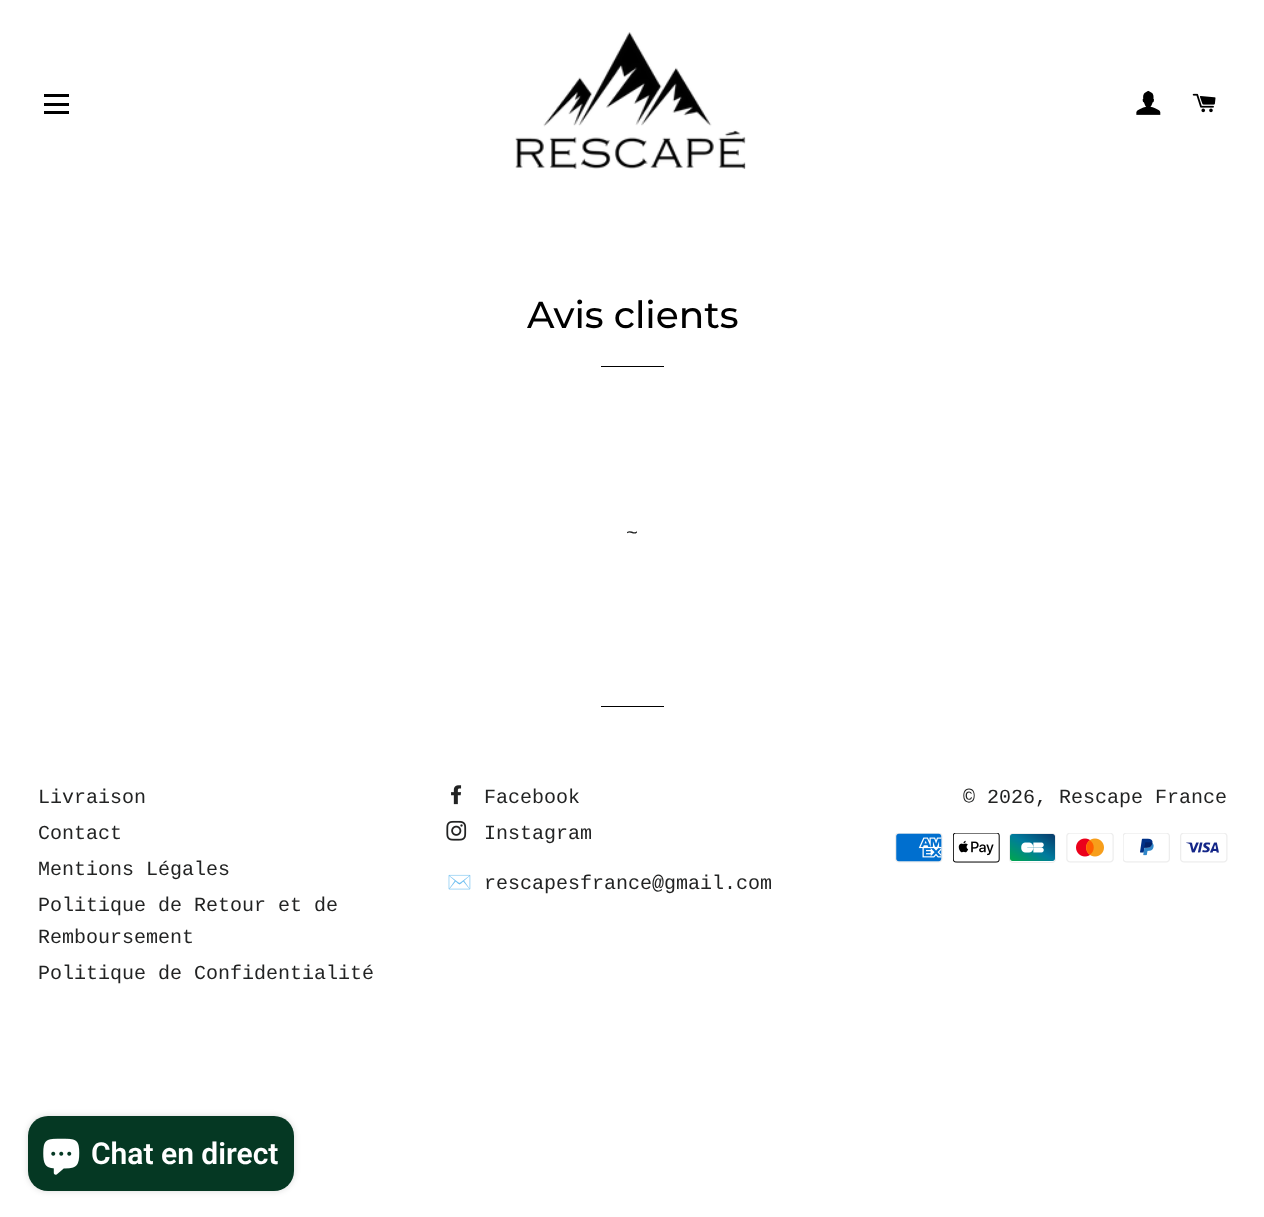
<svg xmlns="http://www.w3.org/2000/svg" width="1264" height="1217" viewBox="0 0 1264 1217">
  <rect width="100%" height="100%" fill="#fff"/>
  <path d="M44 94h25v3H44z" fill="#000"/>
  <path d="M44 103h25v3H44z" fill="#000"/>
  <path d="M44 111h25v3H44z" fill="#000"/>
  <image x="515" y="32" width="231" height="137" href="img/1.png"/>
  <image x="1136" y="90" width="25" height="25" href="img/2.png"/>
  <image x="1192" y="93" width="24" height="20" href="img/3.png"/>
  <path d="M601 366h63v1H601z" fill="#000"/>
  <path d="M601 706h63v1H601z" fill="#000"/>
  <image x="451" y="785" width="11" height="20" href="img/4.png"/>
  <image x="446" y="820" width="21" height="21" href="img/5.png"/>
  <image x="895" y="833" width="48" height="30" href="img/6.png"/>
  <image x="953" y="833" width="47" height="30" href="img/7.png"/>
  <image x="1009" y="833" width="47" height="30" href="img/8.png"/>
  <image x="1066" y="833" width="48" height="30" href="img/9.png"/>
  <image x="1123" y="833" width="47" height="30" href="img/10.png"/>
  <image x="1180" y="833" width="48" height="30" href="img/11.png"/>
  <rect x="28" y="1116" width="266" height="75" rx="20" fill="#00000026" filter="blur(3px)"/>
  <rect x="28" y="1116" width="266" height="75" rx="20" fill="#053823"/>
  <image x="43" y="1138" width="37" height="37" href="img/12.png"/>
  <text x="527" y="328" font-family="Montserrat" font-size="37.5" font-weight="500" fill="#000">Avis clients</text>
  <g font-family="Liberation Mono" font-size="20" fill="#222323">
    <text x="626" y="539">~</text>
    <text x="38" y="803">Livraison</text>
    <text x="38" y="839">Contact</text>
    <text x="38" y="875">Mentions Légales</text>
    <text x="38" y="911">Politique de Retour et de</text>
    <text x="38" y="943">Remboursement</text>
    <text x="38" y="979">Politique de Confidentialité</text>
    <text x="484" y="803">Facebook</text>
    <text x="484" y="839">Instagram</text>
  </g>
  <text x="447" y="889" font-family="Noto Color Emoji" font-size="20" fill="#222323">✉️</text>
  <g font-family="Liberation Mono" font-size="20" fill="#222323">
    <text x="484" y="889">rescapesfrance@gmail.com</text>
    <text x="963" y="803">© 2026, Rescape France</text>
  </g>
  <text x="91" y="1164" font-family="Roboto" font-size="30" font-weight="600" fill="#fff">Chat en direct</text>
</svg>
